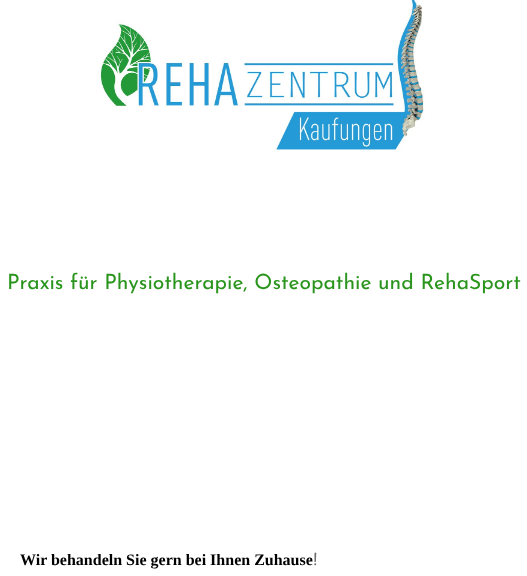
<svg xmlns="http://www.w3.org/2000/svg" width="527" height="576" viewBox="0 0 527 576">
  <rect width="100%" height="100%" fill="#fff"/>
  <image x="98" y="0" width="327" height="150" href="img/1.png"/>
  <text x="7" y="289" font-family="Josefin Sans" font-size="21.1" fill="#2a951d">Praxis für Physiotherapie, Osteopathie und RehaSport</text>
  <text x="20" y="565" font-family="Liberation Serif" font-size="16" font-weight="bold" fill="#000">Wir behandeln Sie gern bei Ihnen Zuhause</text>
  <text x="313" y="565" font-family="Ruluko" font-size="16" font-weight="bold" fill="#6b6b6b">!</text>
</svg>
